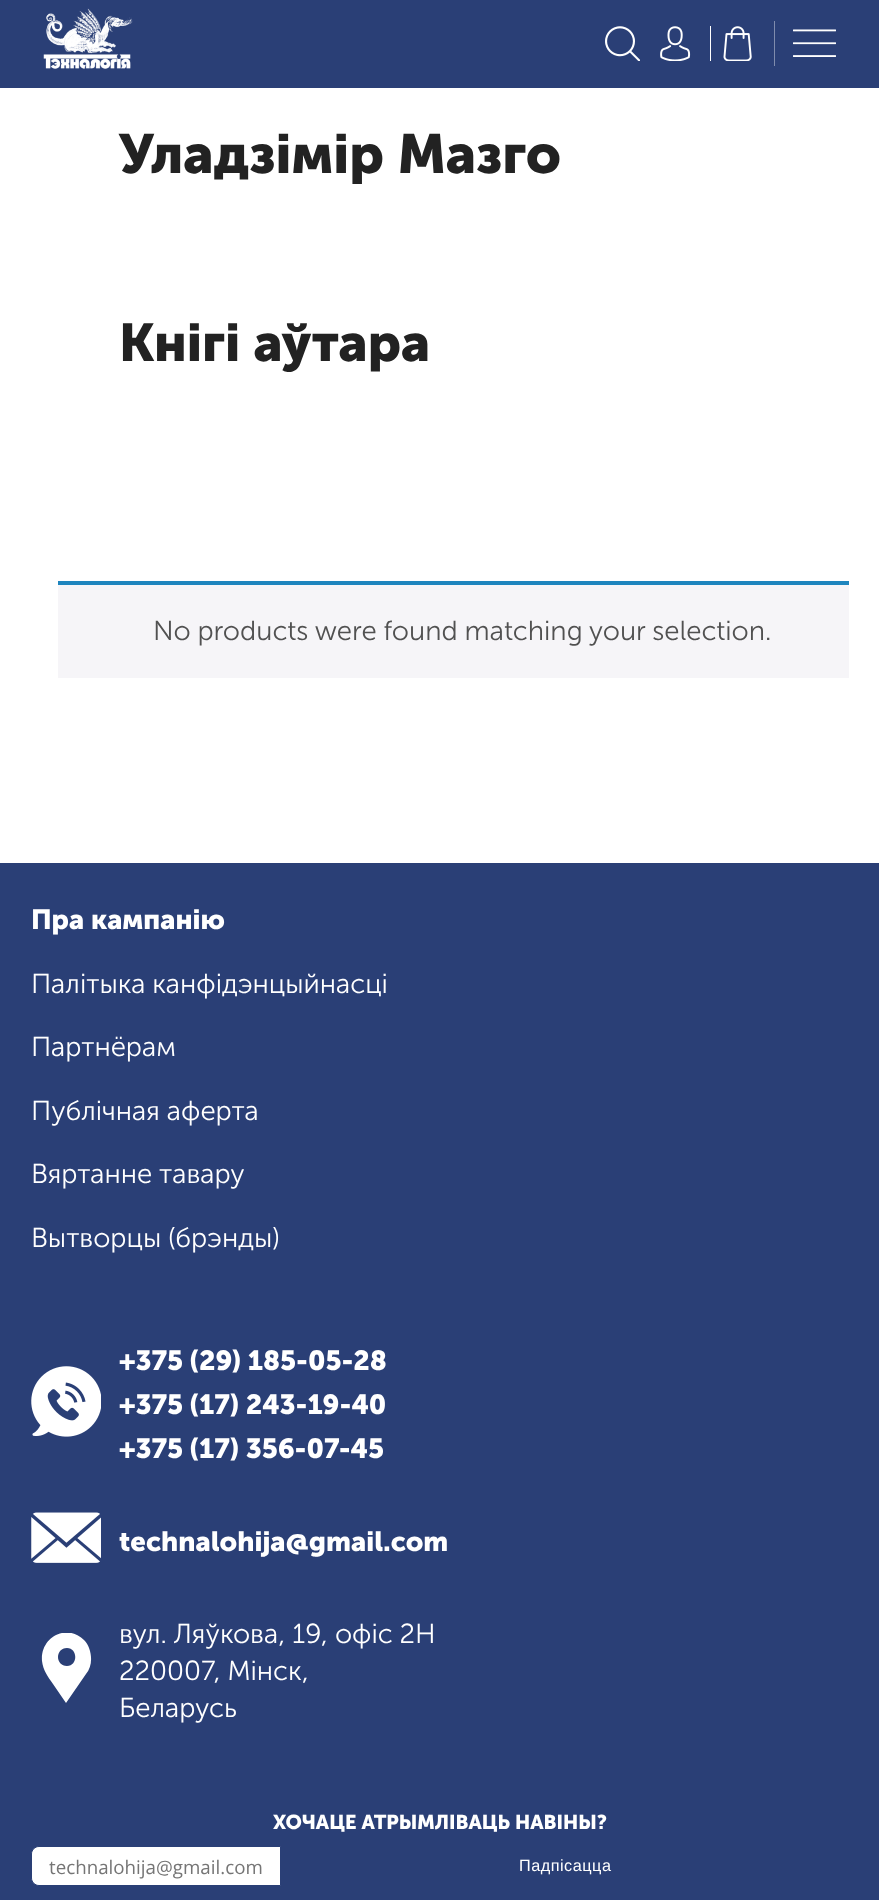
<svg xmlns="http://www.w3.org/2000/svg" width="879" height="1900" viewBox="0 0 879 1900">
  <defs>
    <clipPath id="clip1"><path d="M31 1633h70v70H31z"/></clipPath>
  </defs>
  <rect width="100%" height="100%" fill="#fff"/>
  <path d="M0 0h879v88H0z" fill="#2a3f76"/>
  <image x="43" y="8" width="90" height="61" href="img/1.png"/>
  <image x="605" y="26" width="35" height="35" href="img/2.png"/>
  <image x="660" y="26" width="31" height="35" href="img/3.png"/>
  <path d="M710 26h1v35H710z" fill="#fff"/>
  <image x="723" y="26" width="29" height="35" href="img/4.png"/>
  <path d="M774 21h1v45H774z" fill="#7f8cad"/>
  <image x="793" y="29" width="43" height="28" href="img/5.png"/>
  <path d="M58 585h791v93H58z" fill="#f6f5f8"/>
  <path d="M58 581h791v4H58z" fill="#1e85be"/>
  <path d="M0 863h879v1037H0z" fill="#2a3f76"/>
  <image x="31" y="1366" width="70" height="71" href="img/6.png"/>
  <image x="31" y="1512" width="70" height="51" href="img/7.png"/>
  <g clip-path="url(#clip1)">
    <path d="M84 1640C67 1623 40 1637 42 1661C43 1670 48 1677 53 1684L66 1703L86 1674C94 1665 92 1648 84 1640ZM67 1666C55 1666 55 1648 67 1648C78 1648 78 1666 67 1666Z" fill="#fff"/>
  </g>
  <path d="M39 1846.5H280.5V1885.5H39C35 1885.5 31.5 1882 31.5 1878V1854C31.5 1850 35 1846.5 39 1846.5Z" fill="#fff" stroke="#2a3f76"/>
  <text x="119" y="173" font-family="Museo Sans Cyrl" font-size="55" font-weight="bold" fill="#222">Уладзімір Мазго</text>
  <text x="119" y="361" font-family="Museo Sans Cyrl" font-size="52.75" font-weight="bold" fill="#222">Кнігі аўтара</text>
  <text x="153" y="640" font-family="Museo Sans Cyrl" font-size="27.5" font-weight="300" fill="#515151">No products were found matching your selection.</text>
  <text x="31" y="929" font-family="Museo Sans Cyrl" font-size="27.5" font-weight="bold" fill="#fff">Пра кампанію</text>
  <g font-family="Museo Sans Cyrl" font-size="27.5" font-weight="300" fill="#fff">
    <text x="31" y="993">Палітыка канфідэнцыйнасці</text>
    <text x="31" y="1056">Партнёрам</text>
    <text x="31" y="1120">Публічная аферта</text>
    <text x="31" y="1183">Вяртанне тавару</text>
    <text x="31" y="1247">Вытворцы (брэнды)</text>
  </g>
  <g font-family="Museo Sans Cyrl" font-size="27.5" font-weight="bold" fill="#fff">
    <text x="119" y="1370">+375 (29) 185-05-28</text>
    <text x="119" y="1414">+375 (17) 243-19-40</text>
    <text x="119" y="1458">+375 (17) 356-07-45</text>
    <text x="119" y="1551">technalohija@gmail.com</text>
  </g>
  <g font-family="Museo Sans Cyrl" font-size="27.5" font-weight="300" fill="#fff">
    <text x="119" y="1643">вул. Ляўкова, 19, офіс 2Н</text>
    <text x="119" y="1680">220007, Мінск,</text>
    <text x="119" y="1717">Беларусь</text>
  </g>
  <text x="273" y="1829" font-family="Museo Sans Cyrl" font-size="20" font-weight="bold" fill="#fff">ХОЧАЦЕ АТРЫМЛІВАЦЬ НАВІНЫ?</text>
  <text x="49" y="1874" font-family="Open Sans" font-size="18.75" fill="#757575">technalohija@gmail.com</text>
  <text x="519" y="1871" font-family="Liberation Sans" font-size="16.25" letter-spacing="0.5" fill="#fff">Падпісацца</text>
</svg>
